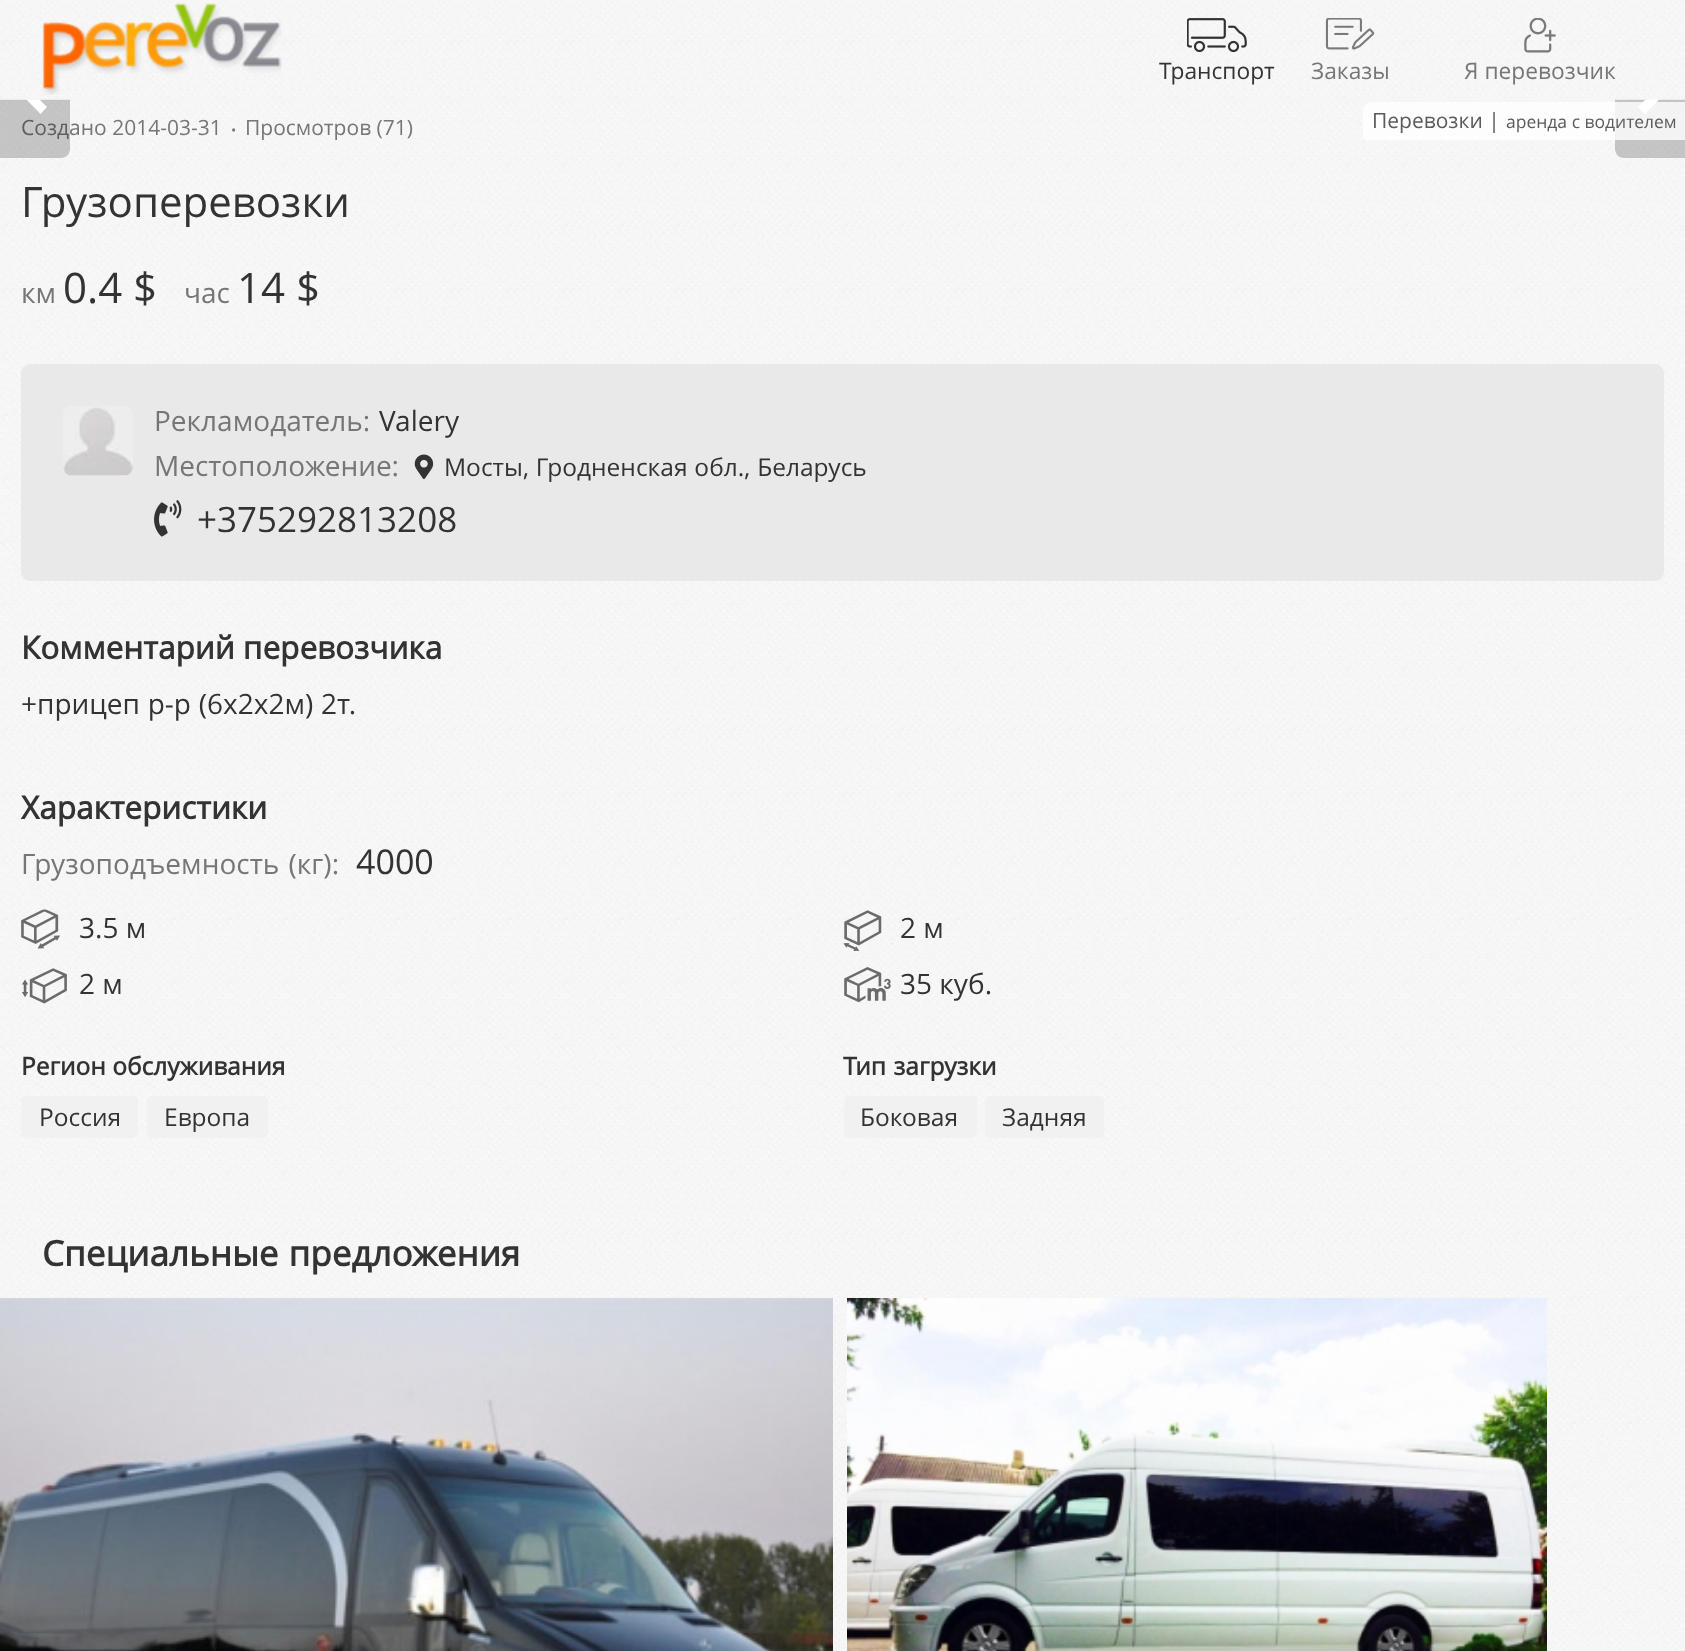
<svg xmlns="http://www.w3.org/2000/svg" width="1685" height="1651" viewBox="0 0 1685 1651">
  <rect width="100%" height="100%" fill="#fff"/>
  <image x="0" y="0" width="1685" height="1651" href="img/6.png"/>
  <rect x="21" y="364" width="1643" height="217" rx="9" fill="#e9e9e9"/>
  <image x="63" y="406" width="70" height="70" href="img/7.png"/>
  <image x="414" y="454" width="20" height="25" href="img/8.png"/>
  <image x="154" y="500" width="28" height="37" href="img/9.png"/>
  <image x="21" y="909" width="39" height="40" href="img/10.png"/>
  <image x="843" y="910" width="50" height="41" href="img/11.png"/>
  <image x="22" y="968" width="45" height="36" href="img/12.png"/>
  <image x="844" y="967" width="47" height="41" href="img/13.png"/>
  <rect x="21" y="1096" width="117" height="42" rx="5" fill="#f1f1f1"/>
  <rect x="147" y="1096" width="121" height="42" rx="5" fill="#f1f1f1"/>
  <rect x="844" y="1096" width="133" height="42" rx="5" fill="#f1f1f1"/>
  <rect x="985" y="1096" width="119" height="42" rx="5" fill="#f1f1f1"/>
  <path d="M1624 35H1685V158H1624C1619 158 1615 154 1615 149V44C1615 39 1619 35 1624 35Z" fill="#00000033"/>
  <path d="M1645 79L1638 85.5L1649 96L1638 107L1645 114L1662.5 96Z" fill="#fff"/>
  <path d="M1372 102H1685V140H1368C1365 140 1363 138 1363 135V111C1363 106 1367 102 1372 102Z" fill="#ffffffcc"/>
  <image x="0" y="1298" width="833" height="353" href="img/14.png"/>
  <image x="847" y="1298" width="700" height="353" href="img/15.png"/>
  <text x="21" y="135" font-family="Open Sans" font-size="21" fill="#767676">Создано 2014-03-31</text>
  <text x="231" y="135" font-family="Open Sans" font-size="14" fill="#767676">•</text>
  <text x="245" y="135" font-family="Open Sans" font-size="21" fill="#767676">Просмотров (71)</text>
  <text x="21" y="217" font-family="Open Sans" font-size="42" fill="#333">Грузоперевозки</text>
  <text x="21" y="303" font-family="Open Sans" font-size="28" fill="#767676">км</text>
  <text x="63" y="303" font-family="Open Sans" font-size="42" fill="#333">0.4 $</text>
  <text x="184" y="303" font-family="Open Sans" font-size="28" fill="#767676">час</text>
  <text x="237" y="303" font-family="Open Sans" font-size="42" fill="#333">14 $</text>
  <text x="154" y="431" font-family="Open Sans" font-size="28" fill="#767676">Рекламодатель:</text>
  <text x="379" y="431" font-family="Open Sans" font-size="28" fill="#333">Valery</text>
  <text x="154" y="476" font-family="Open Sans" font-size="28" fill="#767676">Местоположение:</text>
  <text x="444" y="476" word-spacing="0.5" font-family="Open Sans" font-size="24.5" fill="#333">Мосты, Гродненская обл., Беларусь</text>
  <text x="197" y="532" font-family="Open Sans" font-size="35" fill="#333">+375292813208</text>
  <text x="21" y="659" font-family="Open Sans" font-size="31.5" font-weight="bold" fill="#333">Комментарий перевозчика</text>
  <text x="21" y="714" word-spacing="0.5" font-family="Open Sans" font-size="28" fill="#333">+прицеп р-р (6х2х2м) 2т.</text>
  <text x="21" y="819" font-family="Open Sans" font-size="31.5" font-weight="bold" fill="#333">Характеристики</text>
  <text x="21" y="874" word-spacing="2" font-family="Open Sans" font-size="28" fill="#767676">Грузоподъемность (кг):</text>
  <text x="356" y="874" font-family="Open Sans" font-size="34" fill="#333">4000</text>
  <g font-family="Open Sans" font-size="28" fill="#333">
    <text x="79" y="938">3.5 м</text>
    <text x="900" y="938">2 м</text>
    <text x="79" y="994">2 м</text>
    <text x="900" y="994">35 куб.</text>
  </g>
  <text x="21" y="1075" font-family="Open Sans" font-size="24.5" font-weight="bold" fill="#333">Регион обслуживания</text>
  <g font-family="Open Sans" font-size="24.5" fill="#333">
    <text x="39" y="1126">Россия</text>
    <text x="164" y="1126">Европа</text>
  </g>
  <text x="843" y="1075" word-spacing="1" font-family="Open Sans" font-size="24.5" font-weight="bold" fill="#333">Тип загрузки</text>
  <g font-family="Open Sans" font-size="24.5" fill="#333">
    <text x="860" y="1126">Боковая</text>
    <text x="1002" y="1126">Задняя</text>
  </g>
  <path d="M0 35H61C66 35 70 39 70 44V149C70 154 66 158 61 158H0Z" fill="#00000033"/>
  <path d="M40.5 79L23 96L40.5 114L47 107L36 96L47 85.5Z" fill="#fff"/>
  <image x="0" y="1" width="1685" height="99" href="img/1.png"/>
  <image x="1524" y="18" width="32" height="35" href="img/5.png"/>
  <text x="1464" y="79" font-family="Open Sans" font-size="22.75" fill="#767676">Я перевозчик</text>
  <image x="1325" y="18" width="50" height="32" href="img/4.png"/>
  <image x="1187" y="18" width="60" height="35" href="img/3.png"/>
  <text x="1311" y="79" font-family="Open Sans" font-size="22.75" fill="#767676">Заказы</text>
  <text x="1159" y="79" font-family="Open Sans" font-size="22.75" fill="#333">Транспорт</text>
  <image x="42" y="3" width="240" height="92" href="img/2.png"/>
  <text x="1372" y="128" font-family="Open Sans" font-size="21" fill="#5b5b5b">Перевозки |</text>
  <text x="1506" y="128" font-family="Open Sans" font-size="17.5" fill="#5b5b5b">аренда с водителем</text>
  <text x="42" y="1266" word-spacing="1" font-family="Open Sans" font-size="35" font-weight="bold" fill="#333">Специальные предложения</text>
</svg>
